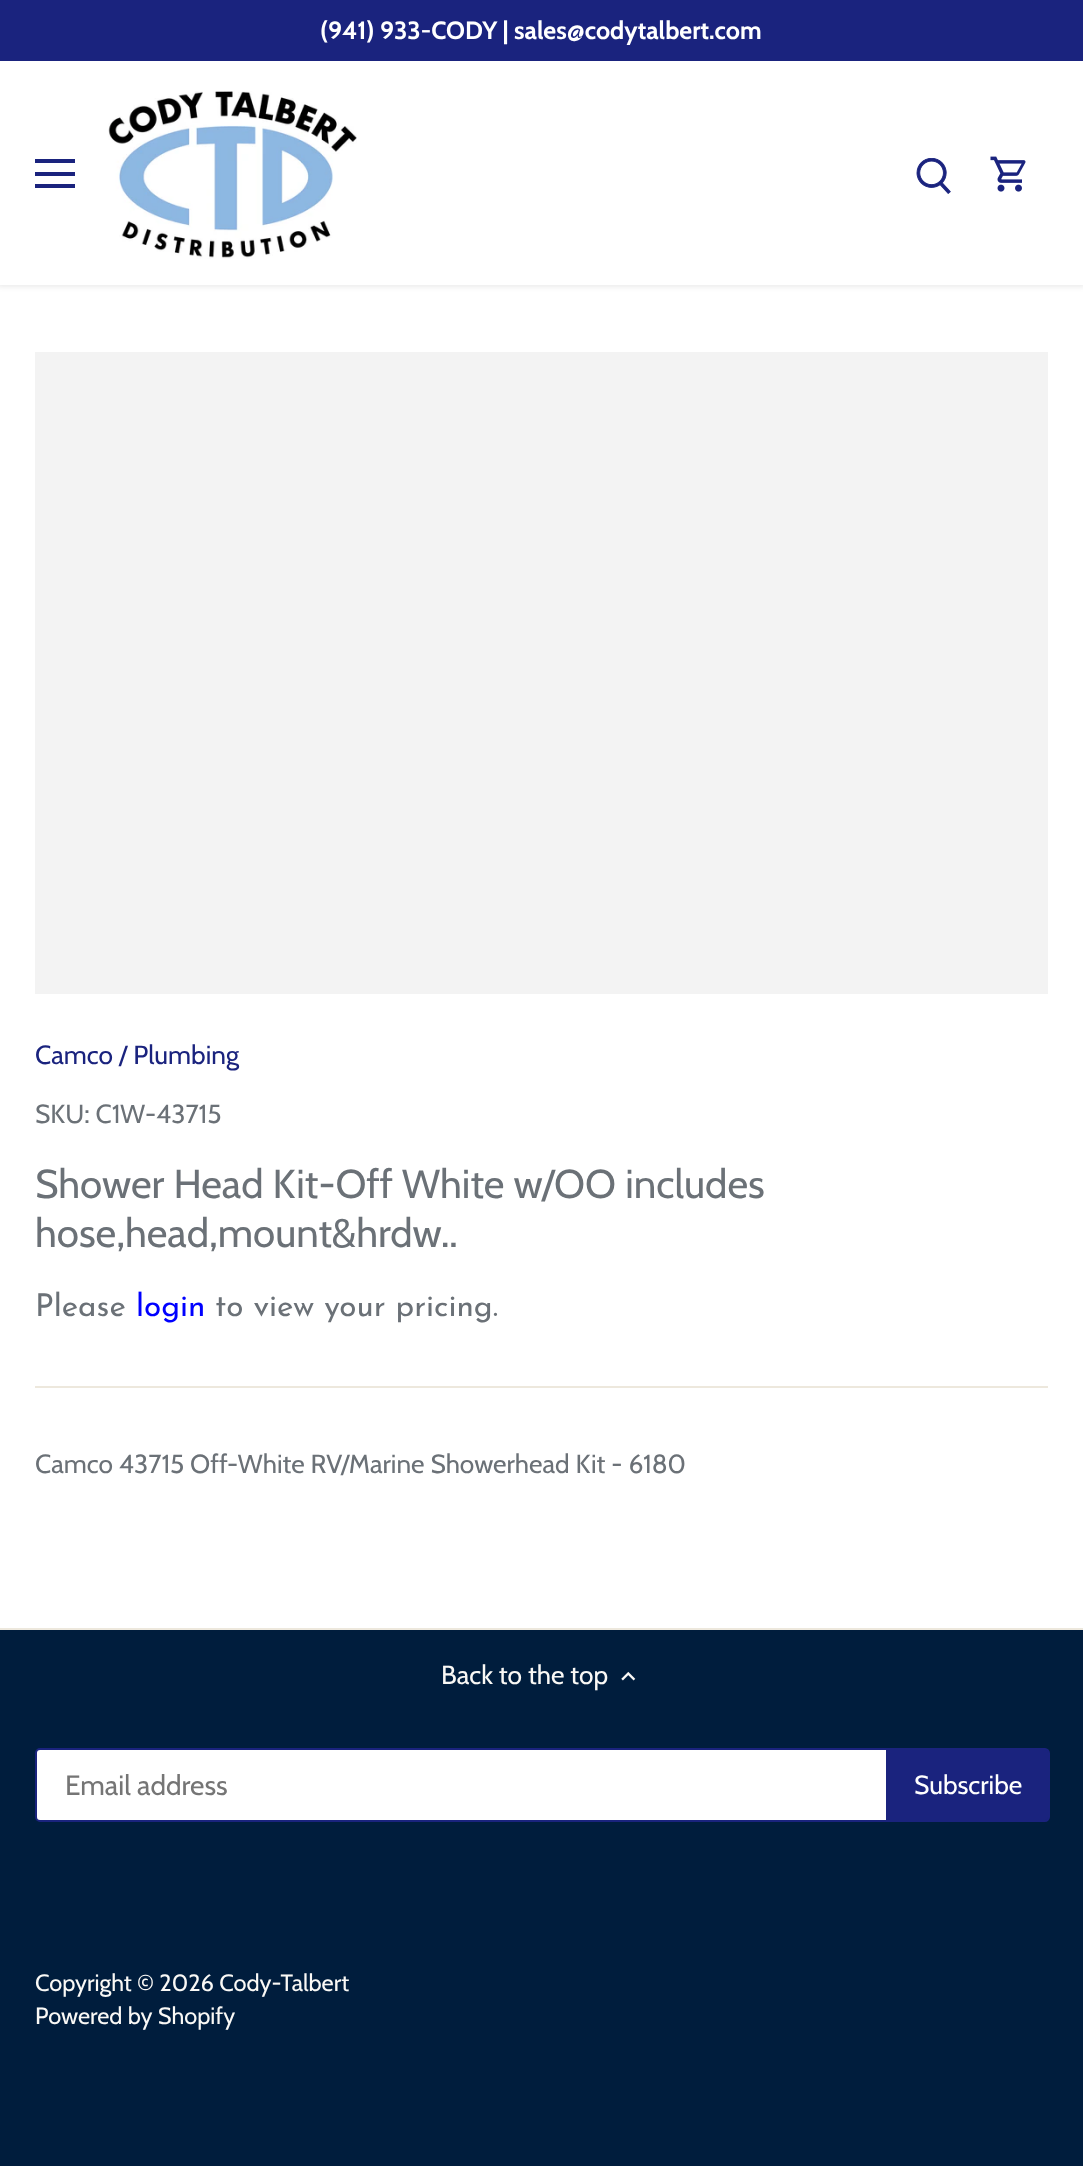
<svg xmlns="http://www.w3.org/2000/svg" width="1083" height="2166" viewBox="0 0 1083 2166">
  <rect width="100%" height="100%" fill="#001d3d"/>
  <path d="M0 285h1083v1343H0z" fill="#fff"/>
  <path d="M-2 60h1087v227H-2z" fill="#00000014" filter="blur(2.5px)"/>
  <path d="M0 0h1083v61H0z" fill="#1a237e"/>
  <path d="M0 61h1083v224H0z" fill="#fff"/>
  <path d="M35 159h40v4H35z" fill="#1a237e"/>
  <path d="M35 172h40v4H35z" fill="#1a237e"/>
  <path d="M35 184h40v4H35z" fill="#1a237e"/>
  <image x="108" y="91" width="249" height="168" href="img/1.png"/>
  <image x="916" y="158" width="35" height="36" href="img/2.png"/>
  <image x="990" y="156" width="36" height="36" href="img/3.png"/>
  <path d="M35 352h1013v642H35z" fill="#f3f3f3"/>
  <path d="M35 1386h1013v2H35z" fill="#ede8dd"/>
  <path d="M0 1628h1083v2H0z" fill="#ede8dd"/>
  <image x="621" y="1671" width="15" height="10" href="img/4.png"/>
  <rect x="36" y="1749" width="1011" height="72" rx="4" fill="#fff" stroke="#1a237e" stroke-width="2"/>
  <path d="M887 1749H1045C1047 1749 1049 1751 1049 1753V1817C1049 1819 1047 1821 1045 1821H887Z" fill="#1a237e" stroke="#1a237e" stroke-width="2"/>
  <text x="320" y="39" font-family="Cabin" font-size="24.9" font-weight="bold" fill="#fff">(941) 933-CODY | sales@codytalbert.com</text>
  <text x="35" y="1064" font-family="Cabin" font-size="26.25" fill="#1a237e">Camco / Plumbing</text>
  <text x="35" y="1123" font-family="Cabin" font-size="26.25" fill="#6b7177">SKU: C1W-43715</text>
  <g font-family="Cabin" font-size="40.25" fill="#6b7177">
    <text x="35" y="1198">Shower Head Kit-Off White w/OO includes</text>
    <text x="35" y="1247">hose,head,mount&amp;hrdw..</text>
  </g>
  <text x="35" y="1316" font-family="Josefin Sans" font-size="31.5" fill="#6b7177">Please</text>
  <text x="136" y="1316" font-family="Josefin Sans" font-size="31.5" fill="#00f">login</text>
  <text x="215" y="1316" font-family="Josefin Sans" font-size="31.5" fill="#6b7177">to view your pricing.</text>
  <text x="35" y="1473" font-family="Cabin" font-size="26.25" fill="#6b7177">Camco 43715 Off-White RV/Marine Showerhead Kit - 6180</text>
  <text x="441" y="1684" font-family="Cabin" font-size="26.25" fill="#faf9f6">Back to the top</text>
  <text x="65" y="1795" font-family="Cabin" font-size="28" fill="#757575">Email address</text>
  <text x="914" y="1794" font-family="Cabin" font-size="26.25" fill="#fff">Subscribe</text>
  <g font-family="Cabin" font-size="23.6" fill="#faf9f6">
    <text x="35" y="1991">Copyright © 2026 Cody-Talbert</text>
    <text x="35" y="2024">Powered by Shopify</text>
  </g>
</svg>
